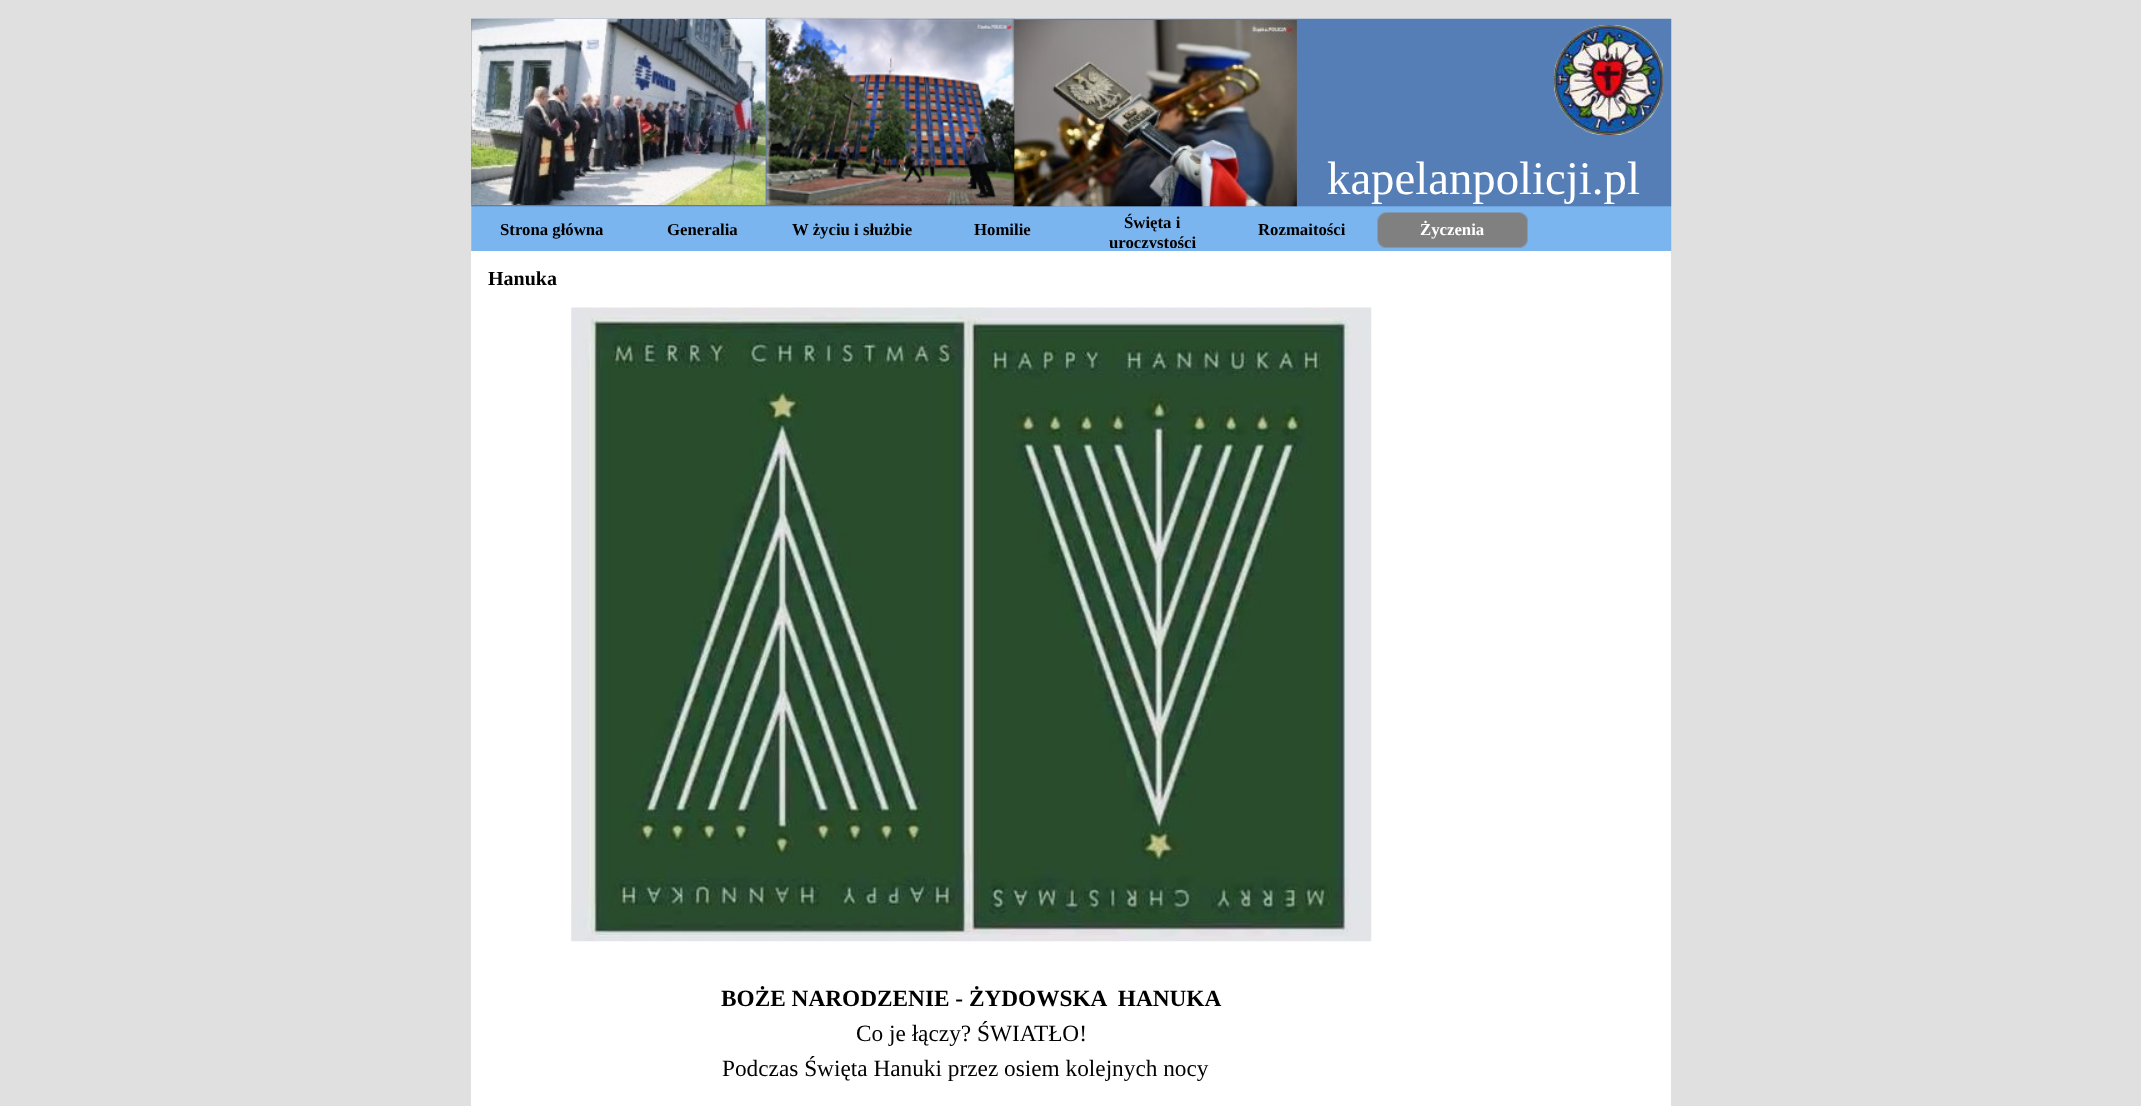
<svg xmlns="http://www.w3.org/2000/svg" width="2141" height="1106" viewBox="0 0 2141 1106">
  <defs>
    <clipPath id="clip1"><path d="M1078 213h150v35H1078z"/></clipPath>
  </defs>
  <rect width="100%" height="100%" fill="#e0e0e0"/>
  <image x="471" y="18" width="1201" height="234" href="img/1.png"/>
  <image x="471" y="18" width="295" height="187" href="img/2.png"/>
  <image x="1012" y="20" width="285" height="187" href="img/4.png"/>
  <image x="766" y="17" width="249" height="188" href="img/3.png"/>
  <image x="1553" y="25" width="111" height="110" href="img/5.png"/>
  <image x="1377" y="212" width="151" height="36" href="img/6.png"/>
  <path d="M471 251h1200v855H471z" fill="#fff"/>
  <image x="571" y="307" width="801" height="635" href="img/7.png"/>
  <text x="1327" y="194" font-family="Liberation Serif" font-size="46.75" fill="#fff">kapelanpolicji.pl</text>
  <g font-family="Liberation Serif" font-size="16.75" font-weight="bold" fill="#000">
    <text x="500" y="235">Strona główna</text>
    <text x="667" y="235">Generalia</text>
    <text x="792" y="235">W życiu i służbie</text>
    <text x="974" y="235">Homilie</text>
    <text x="1124" y="228">Święta i</text>
  </g>
  <g clip-path="url(#clip1)">
    <text x="1109" y="248" font-family="Liberation Serif" font-size="16.75" font-weight="bold" fill="#000">uroczystości</text>
  </g>
  <text x="1258" y="235" font-family="Liberation Serif" font-size="16.75" font-weight="bold" fill="#000">Rozmaitości</text>
  <text x="1420" y="235" font-family="Liberation Serif" font-size="16.75" font-weight="bold" fill="#fff">Życzenia</text>
  <text x="488" y="285" font-family="Liberation Serif" font-size="20" font-weight="bold" fill="#000">Hanuka</text>
  <text x="721" y="1006" font-family="Liberation Serif" font-size="23.3" font-weight="bold" fill="#000" xml:space="preserve">BOŻE NARODZENIE - ŻYDOWSKA  HANUKA</text>
  <g font-family="Liberation Serif" font-size="23.3" fill="#000">
    <text x="856" y="1041">Co je łączy? ŚWIATŁO!</text>
    <text x="722" y="1076">Podczas Święta Hanuki przez osiem kolejnych nocy</text>
  </g>
</svg>
